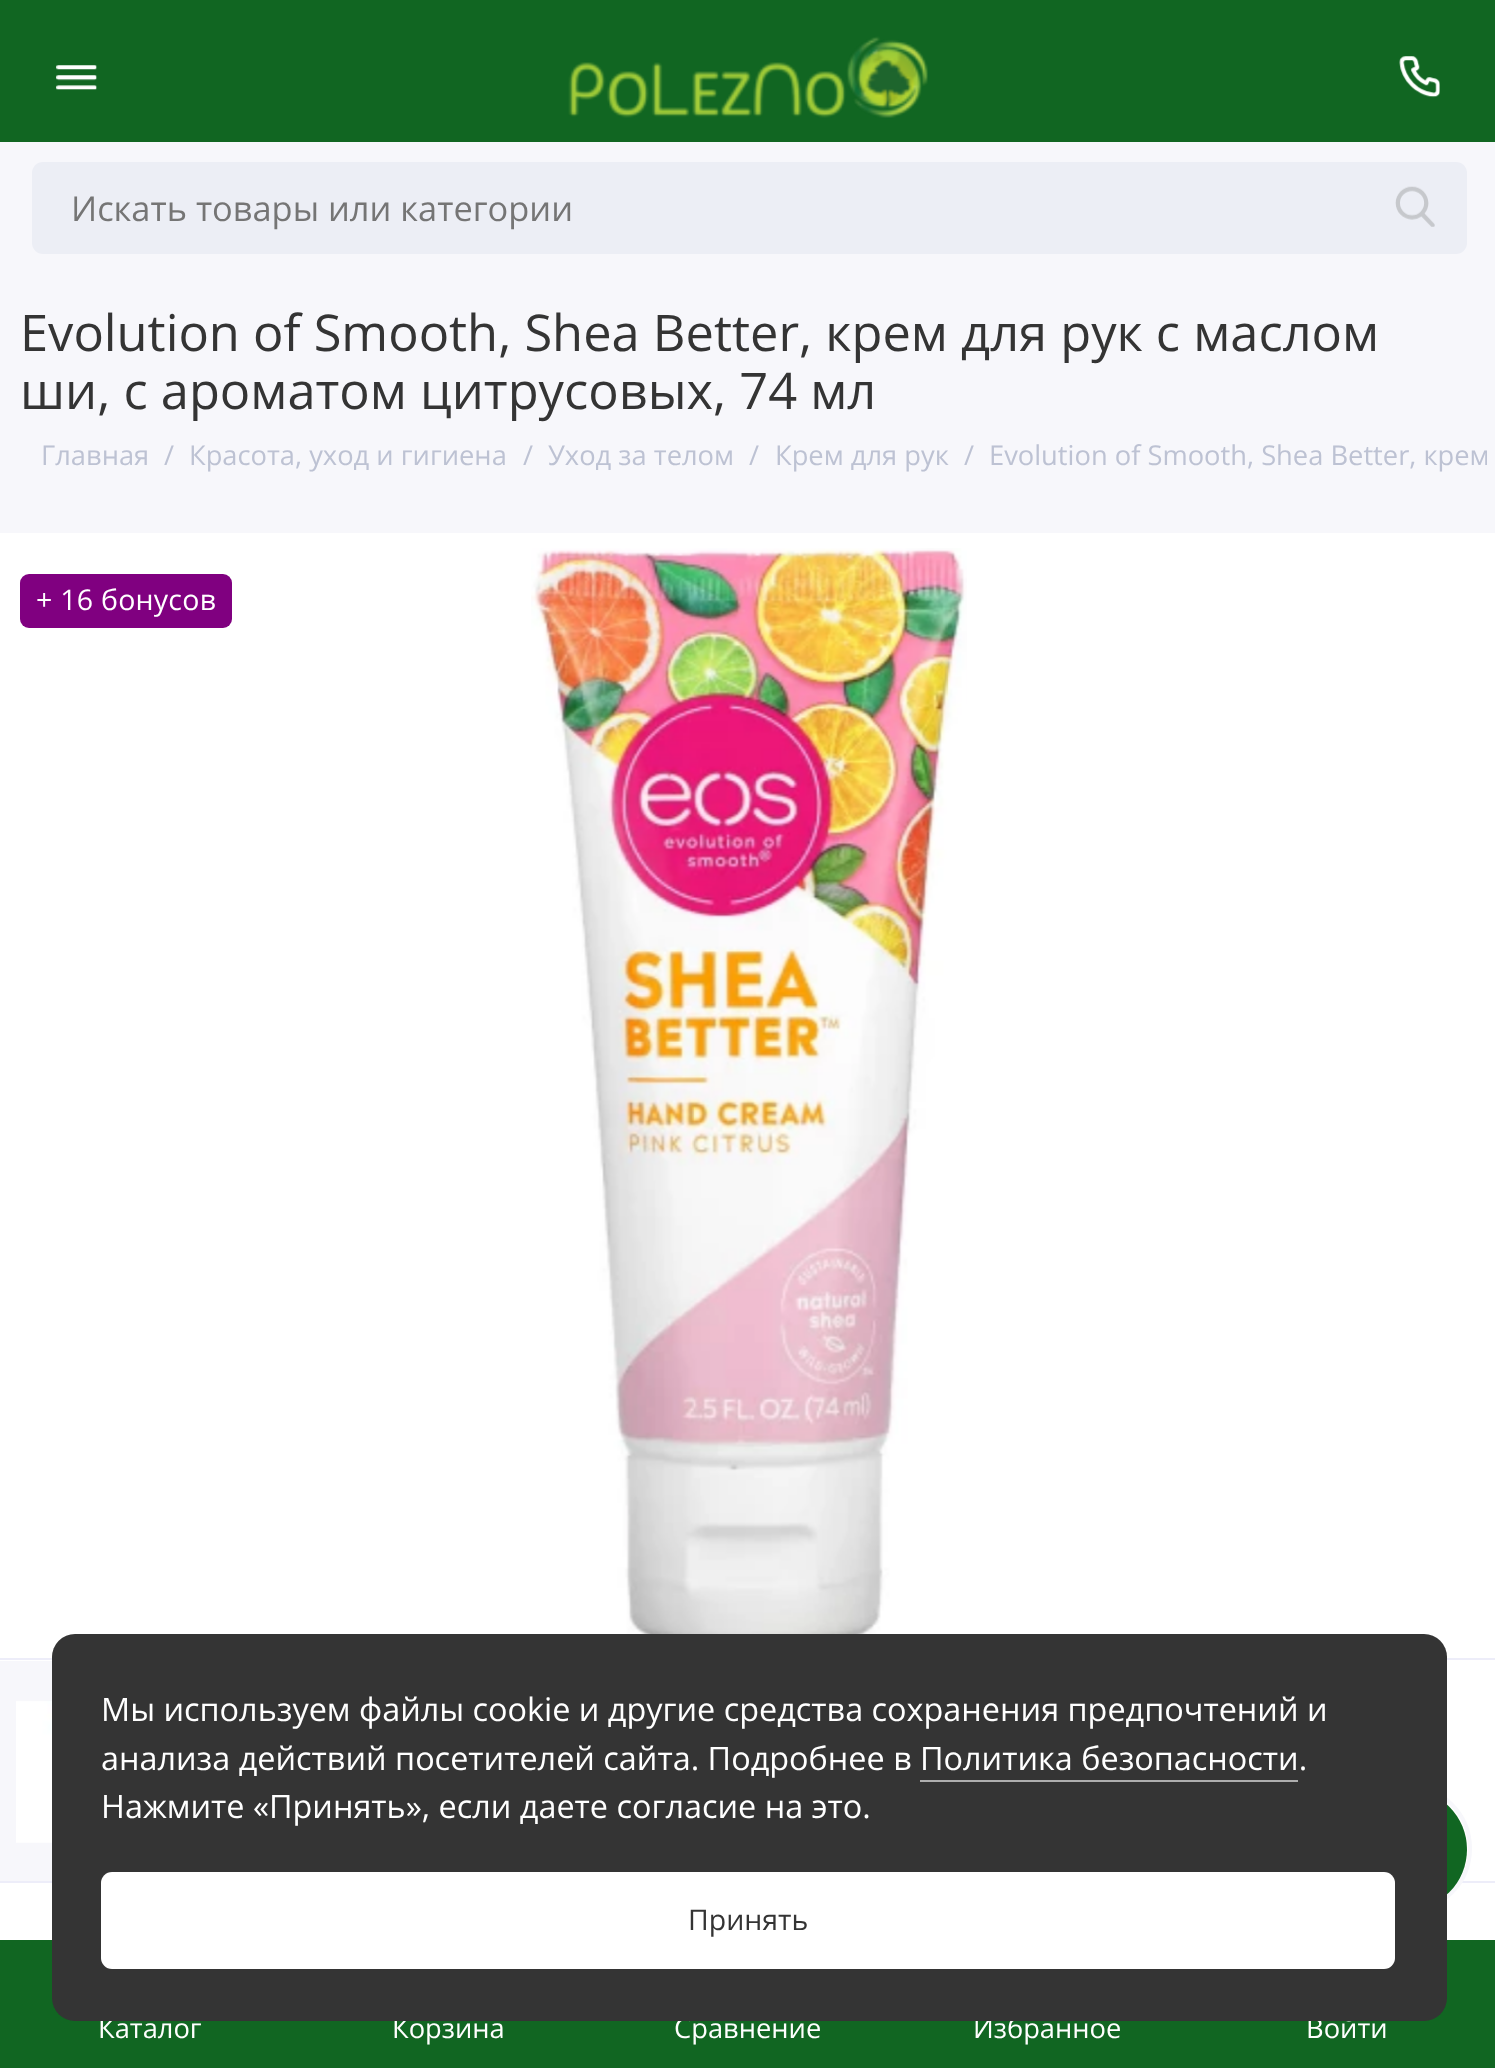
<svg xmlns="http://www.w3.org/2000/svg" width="1495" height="2068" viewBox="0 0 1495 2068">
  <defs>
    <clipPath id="clip1"><path d="M0 441h1487v32H0z"/></clipPath>
  </defs>
  <rect width="100%" height="100%" fill="#f7f7fb"/>
  <path d="M0 0h1495v142H0z" fill="#162"/>
  <image x="56" y="65" width="41" height="25" href="img/1.png"/>
  <image x="568" y="36" width="360" height="82" href="img/2.png"/>
  <image x="1399" y="56" width="41" height="42" href="img/3.png"/>
  <rect x="32" y="162" width="1435" height="92" rx="11" fill="#eceef5"/>
  <image x="1395" y="186" width="40" height="41" href="img/4.png"/>
  <path d="M0 1940h1495v128H0z" fill="#162"/>
  <path d="M0 533h1495v1407H0z" fill="#fff"/>
  <path d="M0 1881h1495v2H0z" fill="#ededf9"/>
  <rect x="1343" y="1786" width="127" height="125" rx="62.5" fill="none" stroke="#f7f7fb" stroke-width="4"/>
  <circle cx="1406.5" cy="1849.5" r="60.5" fill="#162"/>
  <rect x="20" y="574" width="212" height="54" rx="9" fill="#800080"/>
  <image x="531" y="548" width="436" height="1086" href="img/5.png"/>
  <path d="M0 1658h1495v2H0z" fill="#ededf9"/>
  <path d="M0 1661h52v220H0z" fill="#f7f7fb"/>
  <image x="16" y="1700" width="36" height="143" href="img/6.png"/>
  <text x="71" y="221" font-family="Open Sans" font-size="34.4" fill="#757575">Искать товары или категории</text>
  <g font-family="Open Sans" font-size="27.3" fill="#fff">
    <text x="98" y="2038">Каталог</text>
    <text x="392" y="2038">Корзина</text>
    <text x="674" y="2038">Сравнение</text>
    <text x="973" y="2038">Избранное</text>
    <text x="1306" y="2038">Войти</text>
  </g>
  <g font-family="Open Sans" font-size="50.6" fill="#343434">
    <text x="20" y="351">Evolution of Smooth, Shea Better, крем для рук с маслом</text>
    <text x="20" y="409">ши, с ароматом цитрусовых, 74 мл</text>
  </g>
  <g font-family="Open Sans" font-size="27.3" fill="#bdc2d3">
    <text x="41" y="465">Главная</text>
    <text x="164" y="465">/</text>
    <text x="189" y="465">Красота, уход и гигиена</text>
    <text x="523" y="465">/</text>
    <text x="548" y="465">Уход за телом</text>
    <text x="749" y="465">/</text>
    <text x="775" y="465">Крем для рук</text>
    <text x="964" y="465">/</text>
  </g>
  <g clip-path="url(#clip1)">
    <text x="989" y="465" font-family="Open Sans" font-size="27.3" fill="#bdc2d3">Evolution of Smooth, Shea Better, крем</text>
  </g>
  <text x="36" y="610" font-family="Open Sans" font-size="28.5" letter-spacing="0.25" fill="#fff">+ 16 бонусов</text>
  <rect x="52" y="1634" width="1395" height="387" rx="23" fill="#343434"/>
  <g font-family="Open Sans" font-size="32.4" fill="#fff">
    <text x="101" y="1721">Мы используем файлы cookie и другие средства сохранения предпочтений и</text>
    <text x="101" y="1770">анализа действий посетителей сайта. Подробнее в</text>
    <text x="920" y="1770">Политика безопасности.</text>
  </g>
  <path d="M920 1780h378v2H920z" fill="#aeaeae"/>
  <text x="101" y="1818" font-family="Open Sans" font-size="32.4" fill="#fff">Нажмите «Принять», если даете согласие на это.</text>
  <rect x="101" y="1872" width="1294" height="97" rx="11" fill="#fff"/>
  <text x="688" y="1930" font-family="Open Sans" font-size="28.5" fill="#343434">Принять</text>
</svg>
